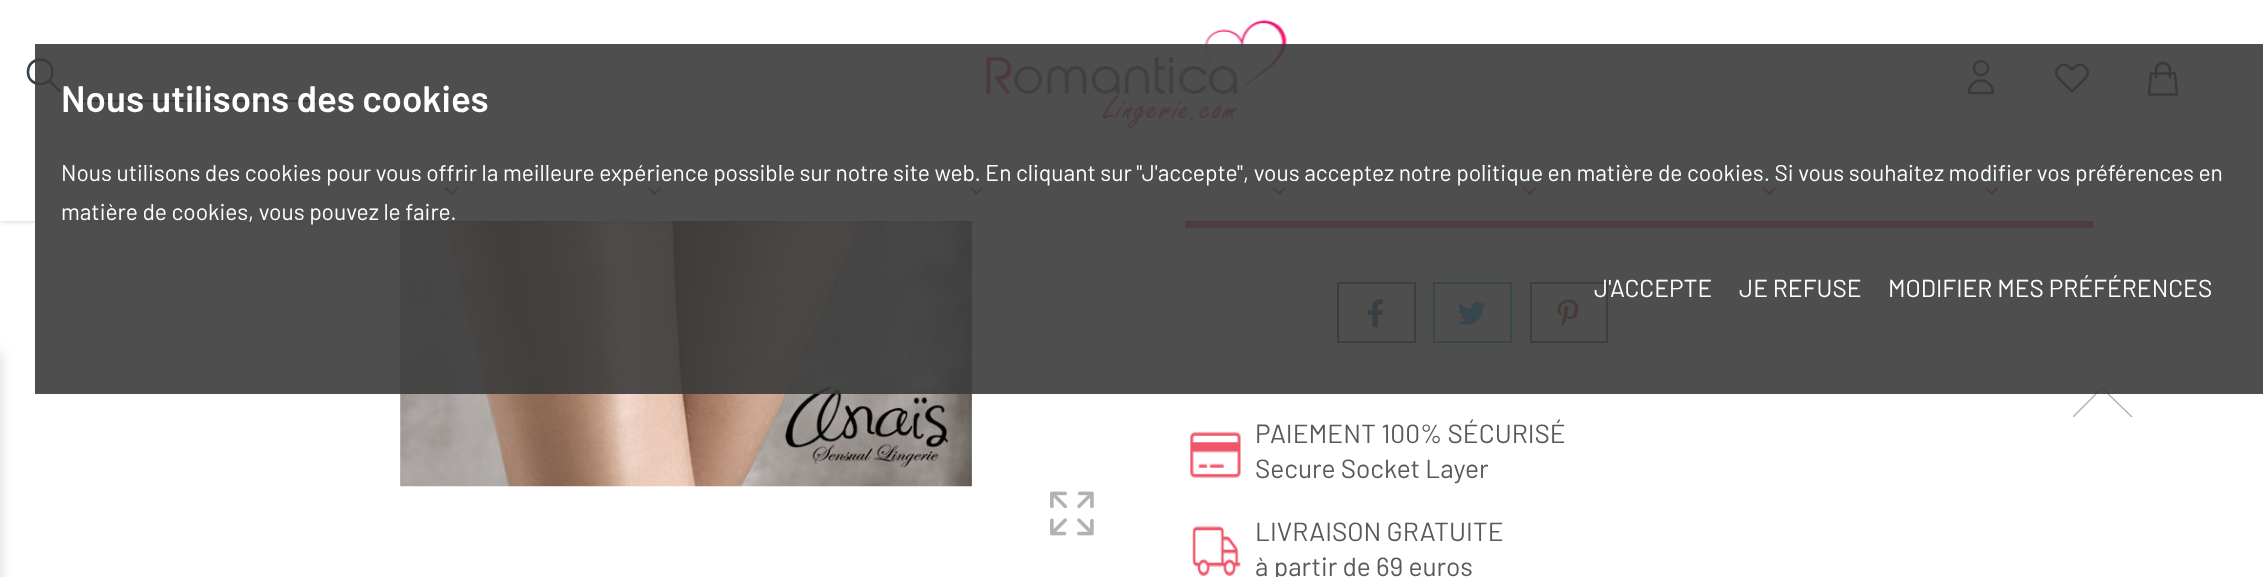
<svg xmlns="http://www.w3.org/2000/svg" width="2263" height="577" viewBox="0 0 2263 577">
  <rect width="100%" height="100%" fill="#fff"/>
  <path d="M2102 387L2073 416C2073 417 2073 417 2074 417L2102 389L2131 417C2132 418 2133 416 2132 416Z" fill="#b2b2b2"/>
  <image x="399" y="221" width="574" height="266" href="img/4.png"/>
  <path d="M1185 221h908v7H1185z" fill="#ef566a"/>
  <path d="M0 2h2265v220H0z" fill="#00000026" filter="blur(2px)"/>
  <path d="M0 0h2263v221H0z" fill="#fff"/>
  <path d="M59.5 91L49 80.5M52.5 72C52.5 88 28 88 28 72C28 55.5 52.5 55.5 52.5 72Z" fill="none" stroke="#374151" stroke-width="2.6" stroke-linecap="round" stroke-linejoin="round"/>
  <path d="M79 100h238v2H79z" fill="#3a3a3a"/>
  <image x="985" y="19" width="303" height="109" href="img/1.png"/>
  <path d="M1988 68C1988 77.5 1974 77.5 1974 68C1974 59 1988 59 1988 68ZM1981 80.5C1974 80.5 1969 86 1969 93H1993C1993 86 1988 80.5 1981 80.5Z" fill="none" stroke="#3a3a3a" stroke-width="2.6" stroke-linecap="round" stroke-linejoin="round"/>
  <path d="M2058.5 67C2055.5 70 2055.5 75 2058.5 78L2072 91.5L2085.5 78C2088.5 75 2088.5 70 2085.5 67C2082.5 64 2077.5 64 2074.5 67L2072 69.5L2069.5 67C2066.5 64 2061.5 64 2058.5 67Z" fill="none" stroke="#3a3a3a" stroke-width="2.6" stroke-linecap="round" stroke-linejoin="round"/>
  <path d="M2170 77V70C2170 66 2167 63 2163 63C2159 63 2156 66 2156 70V77M2151 73.5H2175L2177 94.5H2149Z" fill="none" stroke="#3a3a3a" stroke-width="2.6" stroke-linecap="round" stroke-linejoin="round"/>
  <image x="444" y="186" width="15" height="10" href="img/2.png"/>
  <image x="647" y="186" width="15" height="10" href="img/2.png"/>
  <image x="969" y="186" width="15" height="10" href="img/2.png"/>
  <image x="1272" y="186" width="15" height="10" href="img/3.png"/>
  <image x="1522" y="186" width="15" height="10" href="img/2.png"/>
  <image x="1762" y="186" width="15" height="10" href="img/3.png"/>
  <image x="1984" y="186" width="15" height="10" href="img/2.png"/>
  <path d="M1338 283h77v59H1338z" fill="none" stroke="#369" stroke-width="2"/>
  <image x="1368" y="299" width="15" height="29" href="img/6.png"/>
  <path d="M1434 283h77v59H1434z" fill="none" stroke="#1da1f2" stroke-width="2"/>
  <image x="1458" y="301" width="28" height="24" href="img/7.png"/>
  <path d="M1531 283h76v59H1531z" fill="none" stroke="#c33" stroke-width="2"/>
  <image x="1557" y="299" width="22" height="28" href="img/8.png"/>
  <path d="M35 44h2228v350H35z" fill="#3b3b3be6"/>
  <path d="M-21 352h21v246H-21z" fill="#00000029" filter="blur(7px)"/>
  <image x="1050" y="491" width="44" height="45" href="img/5.png"/>
  <image x="1190" y="431" width="51" height="48" href="img/9.png"/>
  <image x="1192" y="526" width="49" height="50" href="img/10.png"/>
  <text x="61" y="112" font-family="Barlow" font-size="36.75" font-weight="600" fill="#fff">Nous utilisons des cookies</text>
  <g font-family="Barlow" font-size="22.75" fill="#fff">
    <text x="61" y="181">Nous utilisons des cookies pour vous offrir la meilleure expérience possible sur notre site web. En cliquant sur "J'accepte", vous acceptez notre politique en matière de cookies. Si vous souhaitez modifier vos préférences en</text>
    <text x="61" y="220">matière de cookies, vous pouvez le faire.</text>
  </g>
  <g font-family="Barlow" font-size="24.5" fill="#fff">
    <text x="1594" y="297">J'ACCEPTE</text>
    <text x="1739" y="297">JE REFUSE</text>
    <text x="1888" y="297">MODIFIER MES PRÉFÉRENCES</text>
  </g>
  <g font-family="Barlow" font-size="26.25" fill="#5a5959">
    <text x="1255" y="443">PAIEMENT 100% SÉCURISÉ</text>
    <text x="1255" y="478">Secure Socket Layer</text>
    <text x="1255" y="541">LIVRAISON GRATUITE</text>
    <text x="1255" y="576">à partir de 69 euros</text>
  </g>
</svg>
